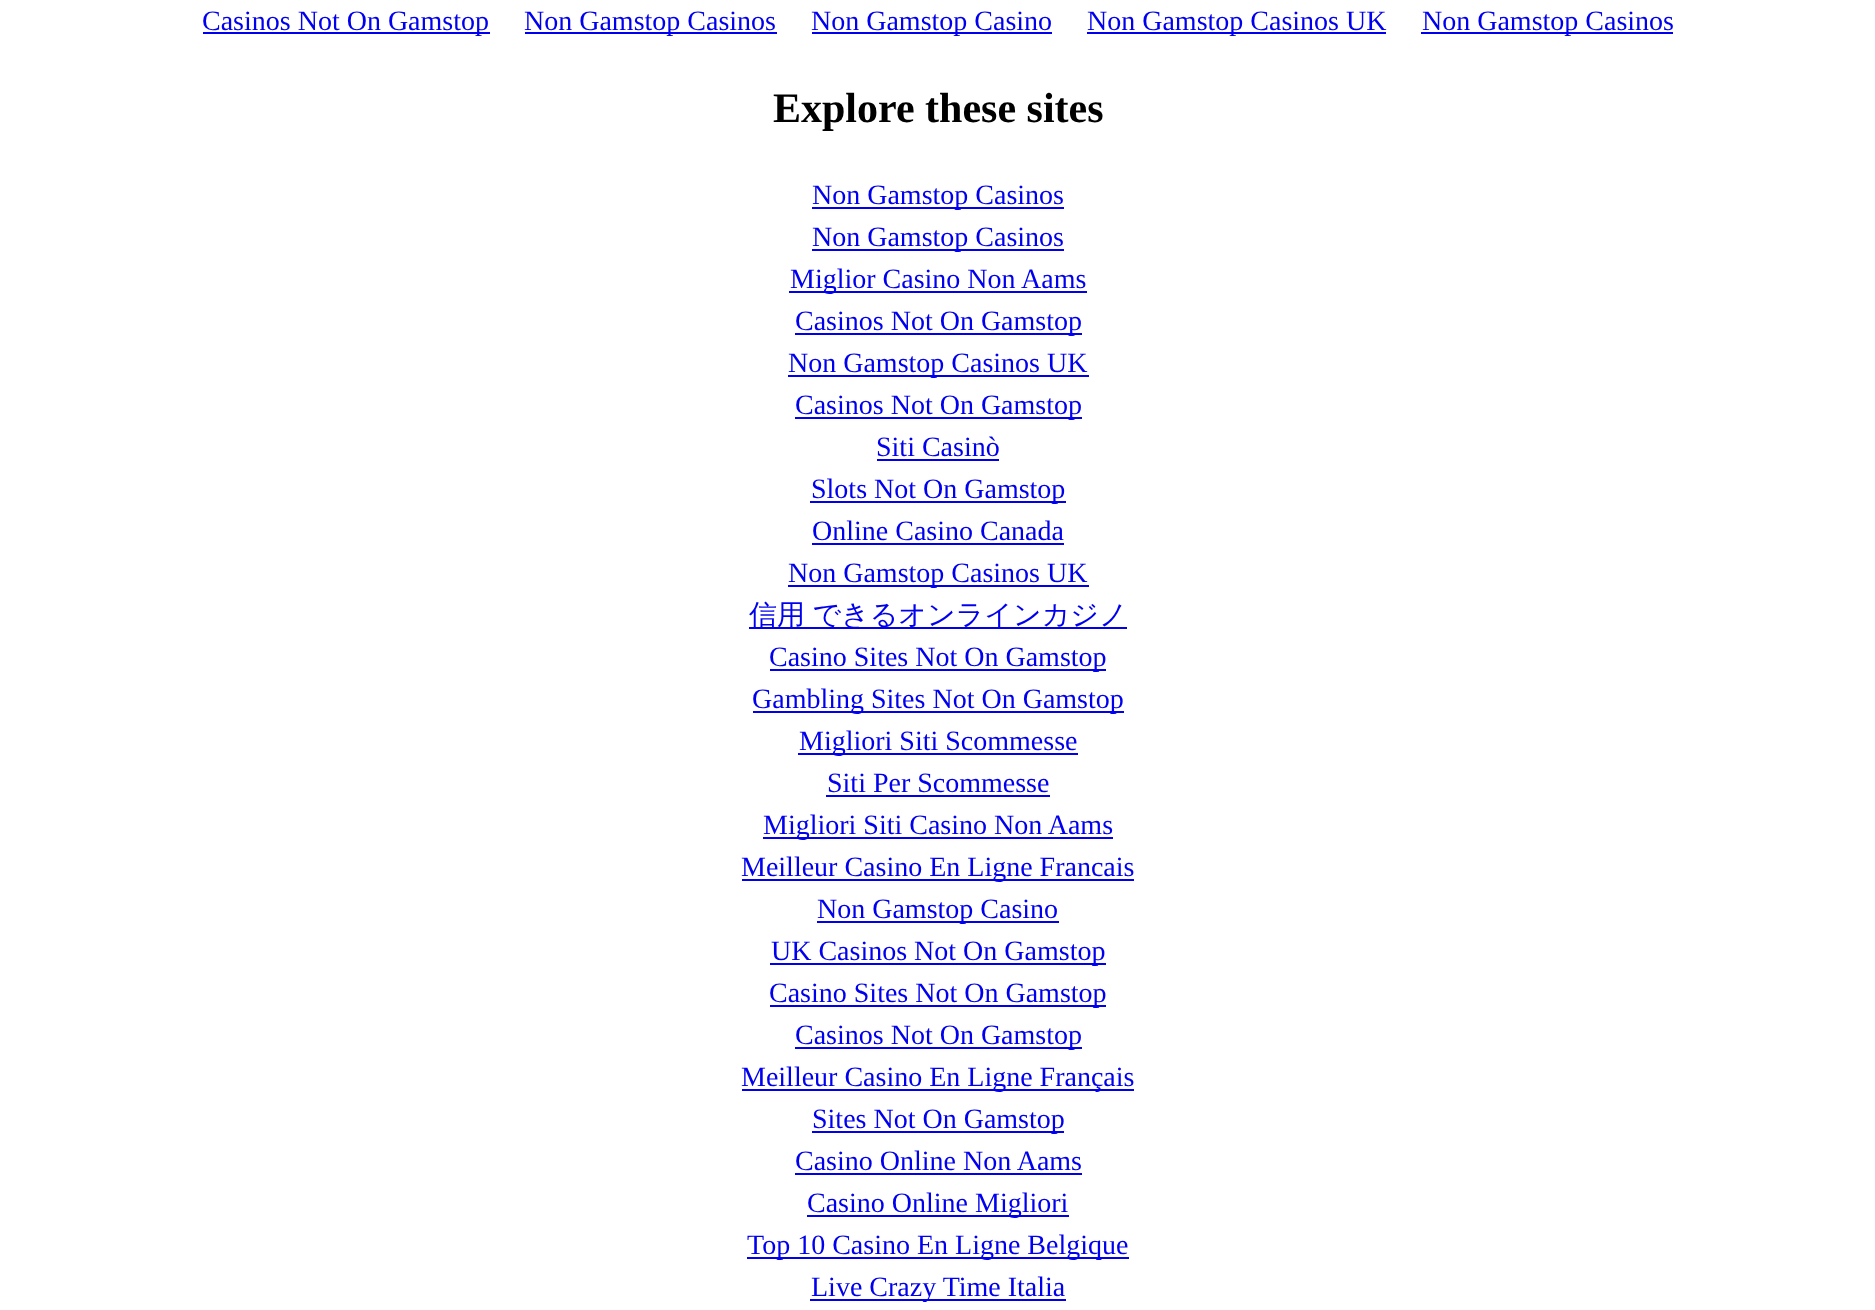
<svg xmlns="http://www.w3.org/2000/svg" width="1875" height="1310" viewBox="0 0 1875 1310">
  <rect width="100%" height="100%" fill="#fff"/>
  <path d="M203 32h287v2H203z" fill="#00e"/>
  <path d="M525 32h252v2H525z" fill="#00e"/>
  <path d="M812 32h240v2H812z" fill="#00e"/>
  <path d="M1087 32h299v2H1087z" fill="#00e"/>
  <path d="M1421 32h252v2H1421z" fill="#00e"/>
  <path d="M812 207h252v2H812z" fill="#00e"/>
  <path d="M812 249h252v2H812z" fill="#00e"/>
  <path d="M789 291h298v2H789z" fill="#00e"/>
  <path d="M795 333h287v2H795z" fill="#00e"/>
  <path d="M788 375h301v2H788z" fill="#00e"/>
  <path d="M795 417h287v2H795z" fill="#00e"/>
  <path d="M877 459h122v2H877z" fill="#00e"/>
  <path d="M810 501h256v2H810z" fill="#00e"/>
  <path d="M812 543h252v2H812z" fill="#00e"/>
  <path d="M788 585h301v2H788z" fill="#00e"/>
  <path d="M749 627h378v2H749z" fill="#00e"/>
  <path d="M770 669h336v2H770z" fill="#00e"/>
  <path d="M753 711h371v2H753z" fill="#00e"/>
  <path d="M798 753h280v2H798z" fill="#00e"/>
  <path d="M826 795h224v2H826z" fill="#00e"/>
  <path d="M763 837h350v2H763z" fill="#00e"/>
  <path d="M742 879h392v2H742z" fill="#00e"/>
  <path d="M817 921h242v2H817z" fill="#00e"/>
  <path d="M770 963h336v2H770z" fill="#00e"/>
  <path d="M770 1005h336v2H770z" fill="#00e"/>
  <path d="M795 1047h287v2H795z" fill="#00e"/>
  <path d="M742 1089h392v2H742z" fill="#00e"/>
  <path d="M812 1131h252v2H812z" fill="#00e"/>
  <path d="M795 1173h287v2H795z" fill="#00e"/>
  <path d="M807 1215h262v2H807z" fill="#00e"/>
  <path d="M747 1257h382v2H747z" fill="#00e"/>
  <path d="M810 1299h256v2H810z" fill="#00e"/>
  <g font-family="Liberation Serif" font-size="28" fill="#00e">
    <text x="202" y="30">Casinos Not On Gamstop</text>
    <text x="524" y="30">Non Gamstop Casinos</text>
    <text x="811" y="30">Non Gamstop Casino</text>
    <text x="1087" y="30">Non Gamstop Casinos UK</text>
    <text x="1422" y="30">Non Gamstop Casinos</text>
  </g>
  <text x="773" y="122" font-family="Liberation Serif" font-size="42" font-weight="bold" fill="#000">Explore these sites</text>
  <g font-family="Liberation Serif" font-size="28" fill="#00e">
    <text x="812" y="204">Non Gamstop Casinos</text>
    <text x="812" y="246">Non Gamstop Casinos</text>
    <text x="790" y="288">Miglior Casino Non Aams</text>
    <text x="795" y="330">Casinos Not On Gamstop</text>
    <text x="788" y="372">Non Gamstop Casinos UK</text>
    <text x="795" y="414">Casinos Not On Gamstop</text>
    <text x="876" y="456">Siti Casinò</text>
    <text x="811" y="498">Slots Not On Gamstop</text>
    <text x="812" y="540">Online Casino Canada</text>
    <text x="788" y="582">Non Gamstop Casinos UK</text>
  </g>
  <text x="749" y="624" word-spacing="-1" font-family="WenQuanYi Zen Hei" font-size="28" font-weight="500" fill="#00e">信用 できるオンラインカジノ</text>
  <g font-family="Liberation Serif" font-size="28" fill="#00e">
    <text x="769" y="666">Casino Sites Not On Gamstop</text>
    <text x="752" y="708">Gambling Sites Not On Gamstop</text>
    <text x="799" y="750">Migliori Siti Scommesse</text>
    <text x="827" y="792">Siti Per Scommesse</text>
    <text x="763" y="834">Migliori Siti Casino Non Aams</text>
    <text x="741" y="876">Meilleur Casino En Ligne Francais</text>
    <text x="817" y="918">Non Gamstop Casino</text>
    <text x="771" y="960">UK Casinos Not On Gamstop</text>
    <text x="769" y="1002">Casino Sites Not On Gamstop</text>
    <text x="795" y="1044">Casinos Not On Gamstop</text>
    <text x="741" y="1086">Meilleur Casino En Ligne Français</text>
    <text x="812" y="1128">Sites Not On Gamstop</text>
    <text x="795" y="1170">Casino Online Non Aams</text>
    <text x="807" y="1212">Casino Online Migliori</text>
    <text x="747" y="1254">Top 10 Casino En Ligne Belgique</text>
    <text x="811" y="1296">Live Crazy Time Italia</text>
  </g>
</svg>
